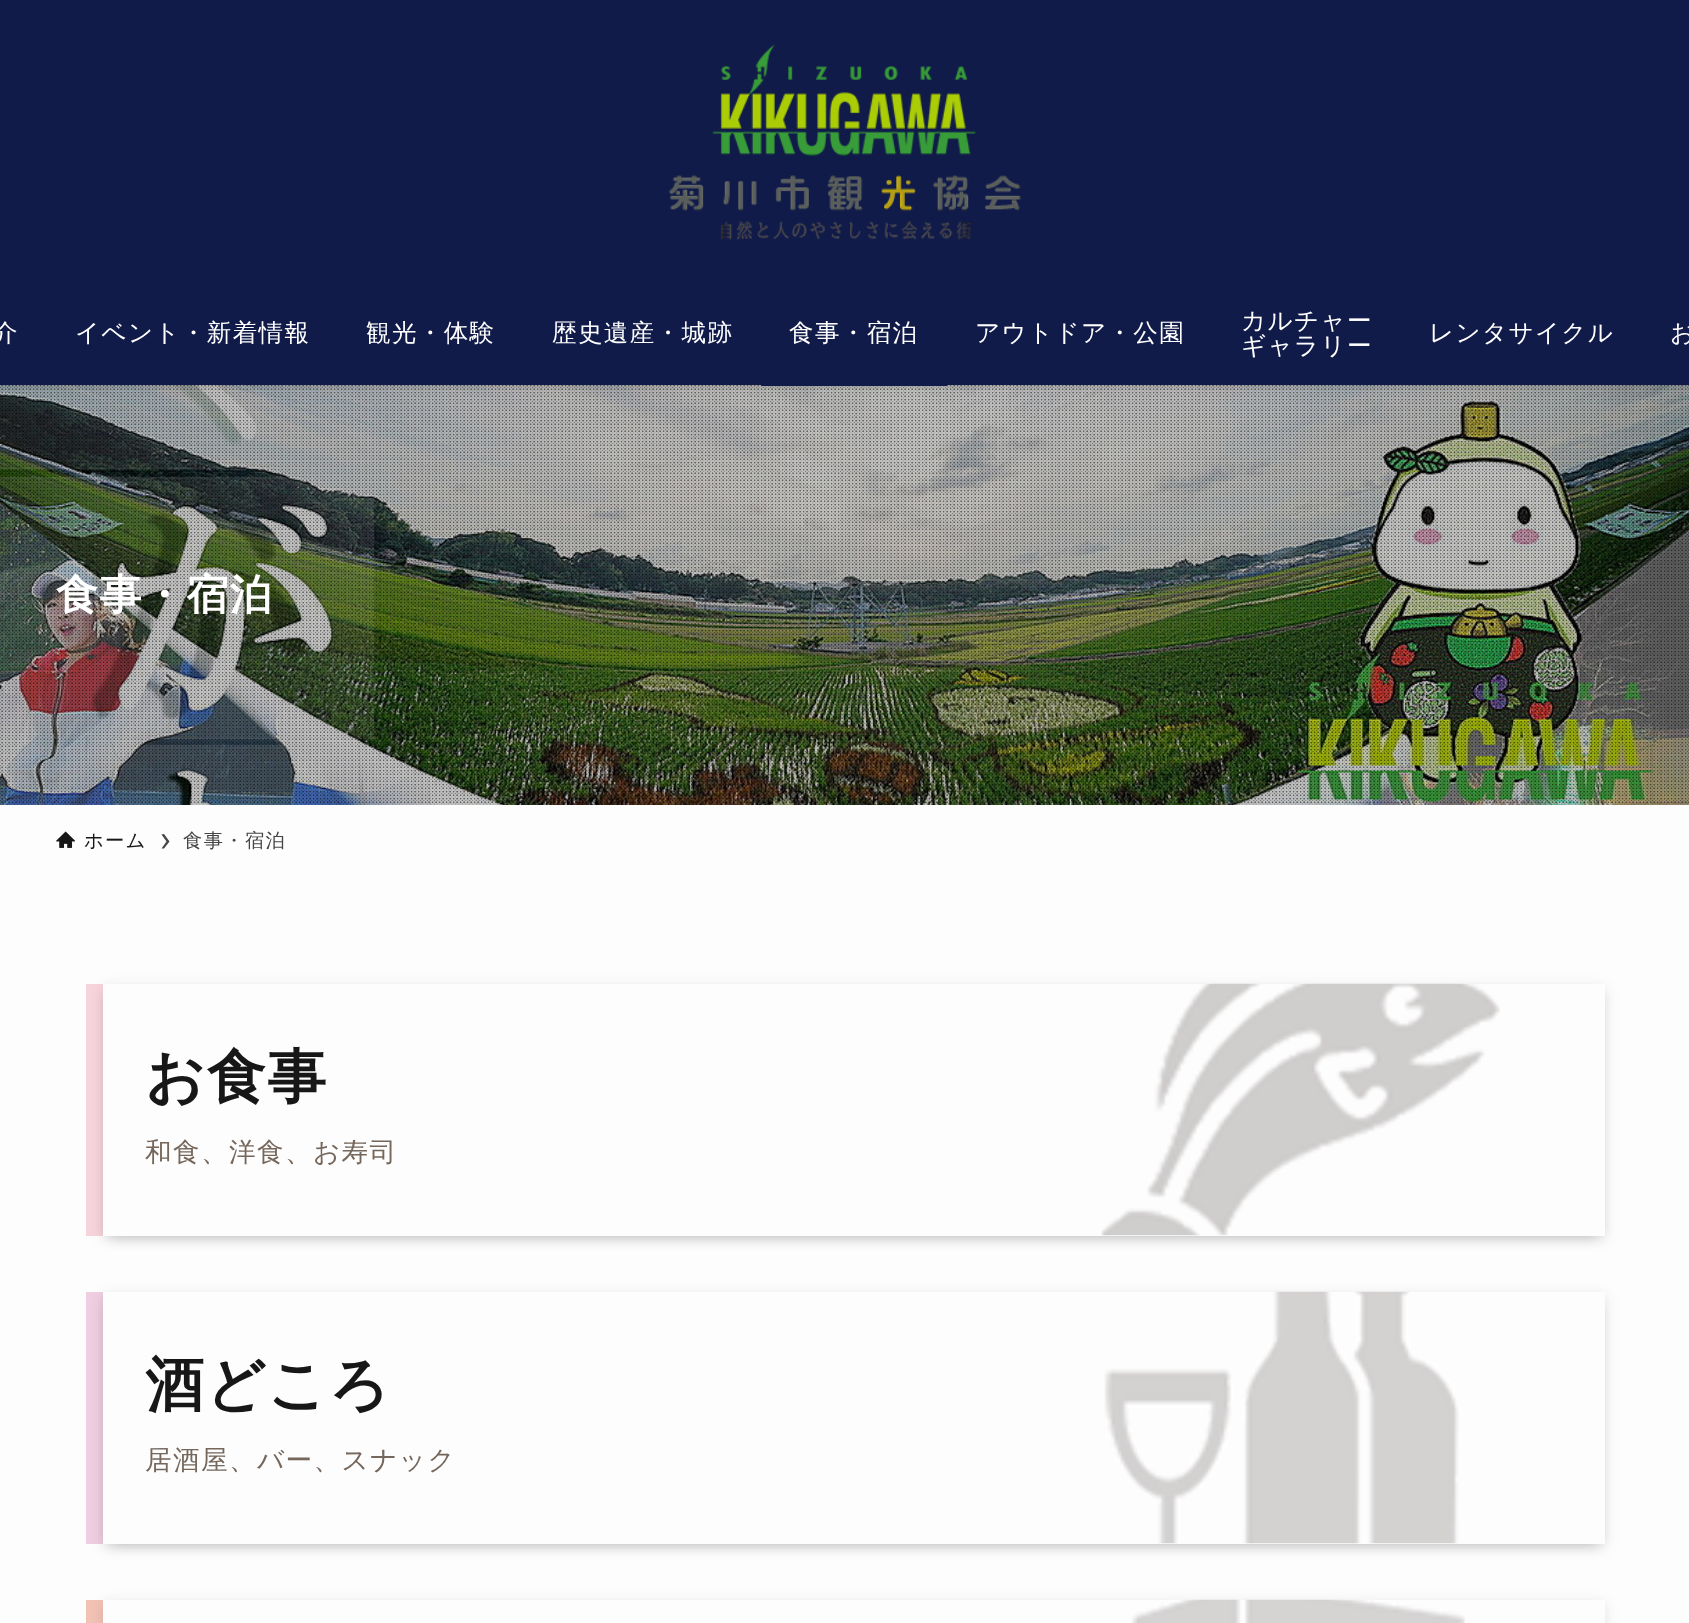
<svg xmlns="http://www.w3.org/2000/svg" width="1689" height="1623" viewBox="0 0 1689 1623">
  <defs>
    <clipPath id="clip1"><path d="M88 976H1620V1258H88ZM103 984H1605V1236H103Z" clip-rule="evenodd"/></clipPath>
    <clipPath id="clip2"><path d="M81 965H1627V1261H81ZM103 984H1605V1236H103Z" clip-rule="evenodd"/></clipPath>
    <clipPath id="clip3"><path d="M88 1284H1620V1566H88ZM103 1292H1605V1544H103Z" clip-rule="evenodd"/></clipPath>
    <clipPath id="clip4"><path d="M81 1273H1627V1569H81ZM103 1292H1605V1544H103Z" clip-rule="evenodd"/></clipPath>
    <clipPath id="clip5"><path d="M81 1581H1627V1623H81ZM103 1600H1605V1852H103Z" clip-rule="evenodd"/></clipPath>
  </defs>
  <rect width="100%" height="100%" fill="#fdfdfd"/>
  <image x="0" y="385" width="1689" height="420" href="img/2.png"/>
  <image x="0" y="385" width="1689" height="420" href="img/3.png"/>
  <path d="M0 2h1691v385H0z" fill="#0000001f" filter="blur(3.5px)"/>
  <path d="M0 0h1689v385H0z" fill="#111b49"/>
  <image x="668" y="44" width="354" height="196" href="img/1.png"/>
  <path d="M761 385h186v1H761z" fill="#111b49"/>
  <image x="56" y="831" width="19" height="17" href="img/4.png"/>
  <path d="M164 834L161.5 834.5L166.5 841.5L161.5 848.5H164L169.5 841.5Z" fill="#454545"/>
  <path d="M86 984h17v252H86z" fill="#f7d4db"/>
  <g clip-path="url(#clip1)">
    <path d="M110 998h1488v238H110z" fill="#00000033" filter="blur(7px)"/>
  </g>
  <g clip-path="url(#clip2)">
    <path d="M103 987h1502v252H103z" fill="#0000001a" filter="blur(7px)"/>
  </g>
  <image x="1101" y="983" width="399" height="253" href="img/5.png"/>
  <path d="M86 1292h17v252H86z" fill="#eecee0"/>
  <g clip-path="url(#clip3)">
    <path d="M110 1306h1488v238H110z" fill="#00000033" filter="blur(7px)"/>
  </g>
  <g clip-path="url(#clip4)">
    <path d="M103 1295h1502v252H103z" fill="#0000001a" filter="blur(7px)"/>
  </g>
  <image x="1104" y="1291" width="355" height="253" href="img/6.png"/>
  <path d="M86 1600h17v23H86z" fill="#f2c2b5"/>
  <g clip-path="url(#clip5)">
    <path d="M103 1603h1502v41H103z" fill="#0000001a" filter="blur(7px)"/>
  </g>
  <image x="1131" y="1599" width="334" height="24" href="img/7.png"/>
  <g font-family="WenQuanYi Zen Hei" font-size="24.5" font-weight="500" letter-spacing="1.4" fill="#fff">
    <text x="-7" y="341">介</text>
    <text x="75" y="341">イベント・新着情報</text>
    <text x="366" y="341">観光・体験</text>
    <text x="552" y="341">歴史遺産・城跡</text>
    <text x="789" y="341">食事・宿泊</text>
    <text x="975" y="341">アウトドア・公園</text>
    <text x="1241" y="329">カルチャー</text>
    <text x="1241" y="354">ギャラリー</text>
    <text x="1429" y="341">レンタサイクル</text>
    <text x="1670" y="341">お</text>
  </g>
  <text x="56" y="609" font-family="WenQuanYi Zen Hei" font-size="42" font-weight="bold" letter-spacing="1.4" fill="#fff">食事・宿泊</text>
  <text x="84" y="847" font-family="WenQuanYi Zen Hei" font-size="19.25" font-weight="500" letter-spacing="1.4" fill="#171717">ホーム</text>
  <text x="183" y="847" font-family="WenQuanYi Zen Hei" font-size="19.25" font-weight="500" letter-spacing="1.4" fill="#454545">食事・宿泊</text>
  <text x="145" y="1097" font-family="WenQuanYi Zen Hei" font-size="59" font-weight="bold" letter-spacing="1.4" fill="#171717">お食事</text>
  <text x="145" y="1161" font-family="WenQuanYi Zen Hei" font-size="26.6" font-weight="500" letter-spacing="1.4" fill="#76675c">和食、洋食、お寿司</text>
  <text x="145" y="1405" font-family="WenQuanYi Zen Hei" font-size="59" font-weight="bold" letter-spacing="1.4" fill="#171717">酒どころ</text>
  <text x="145" y="1469" font-family="WenQuanYi Zen Hei" font-size="26.6" font-weight="500" letter-spacing="1.4" fill="#76675c">居酒屋、バー、スナック</text>
</svg>
